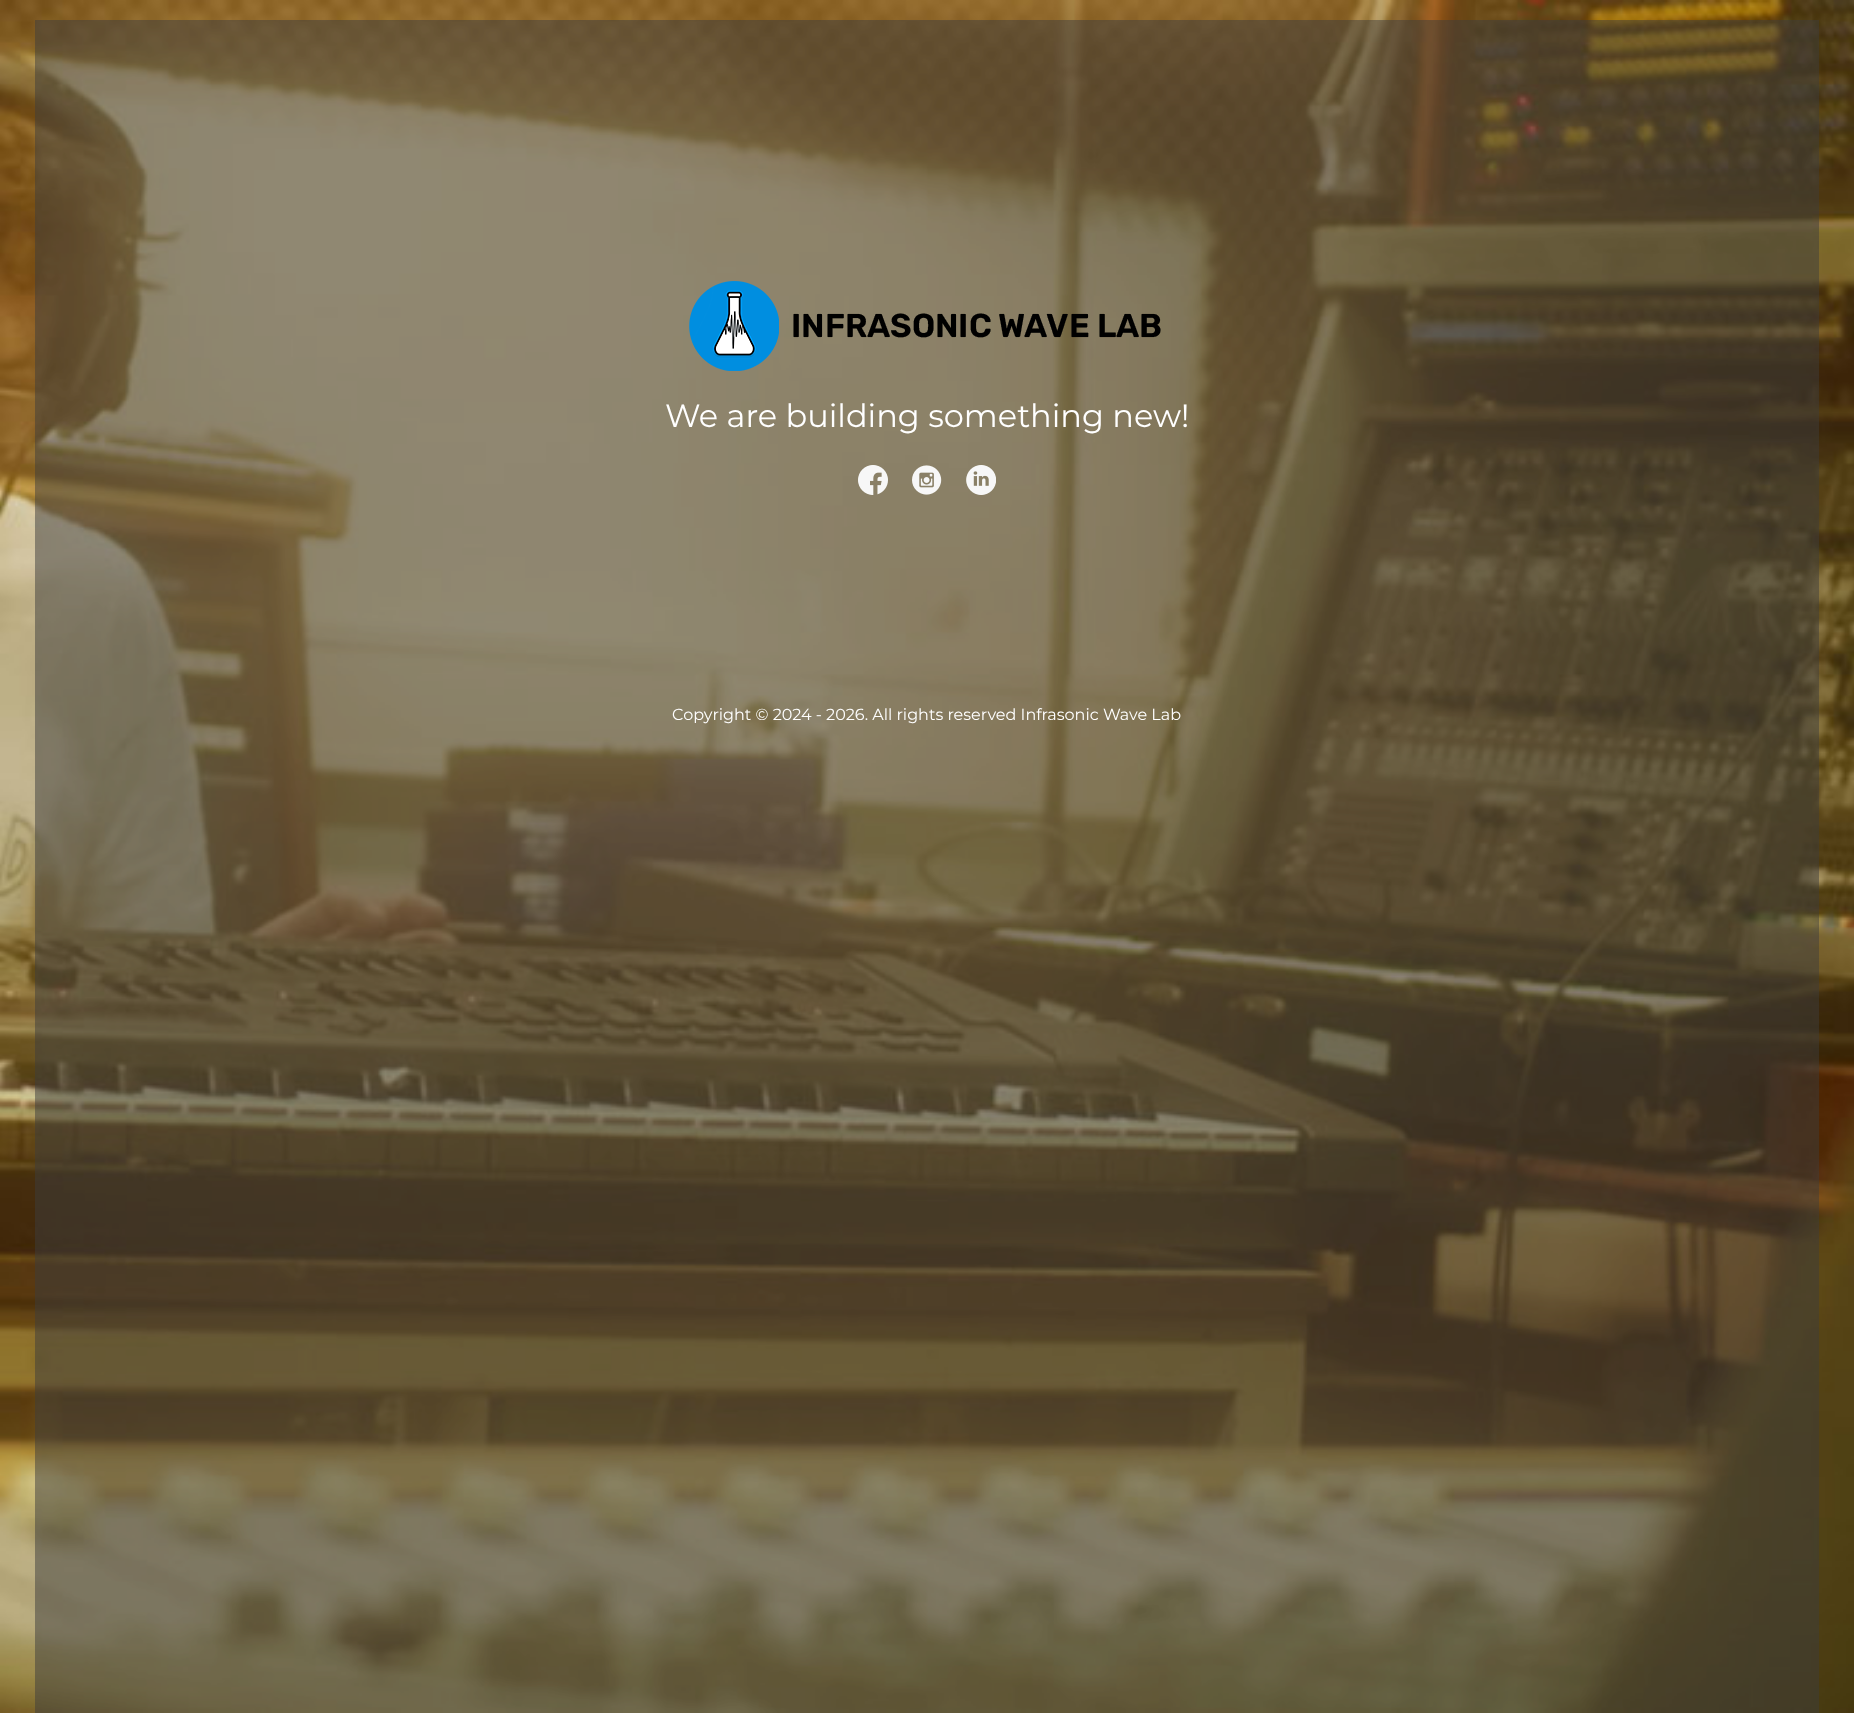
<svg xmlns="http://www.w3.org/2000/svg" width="1854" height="1713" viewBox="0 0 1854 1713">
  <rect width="100%" height="100%" fill="#fff"/>
  <image x="0" y="0" width="1854" height="1713" href="img/1.png"/>
  <image x="689" y="281" width="472" height="90" href="img/2.png"/>
  <image x="858" y="465" width="30" height="30" href="img/3.png"/>
  <image x="912" y="465" width="30" height="30" href="img/4.png"/>
  <image x="966" y="465" width="30" height="30" href="img/5.png"/>
  <text x="665" y="427" font-family="Montserrat" font-size="32" fill="#fff">We are building something new!</text>
  <text x="672" y="720" font-family="Montserrat" font-size="16" fill="#fff">Copyright © 2024 - 2026. All rights reserved Infrasonic Wave Lab</text>
</svg>
